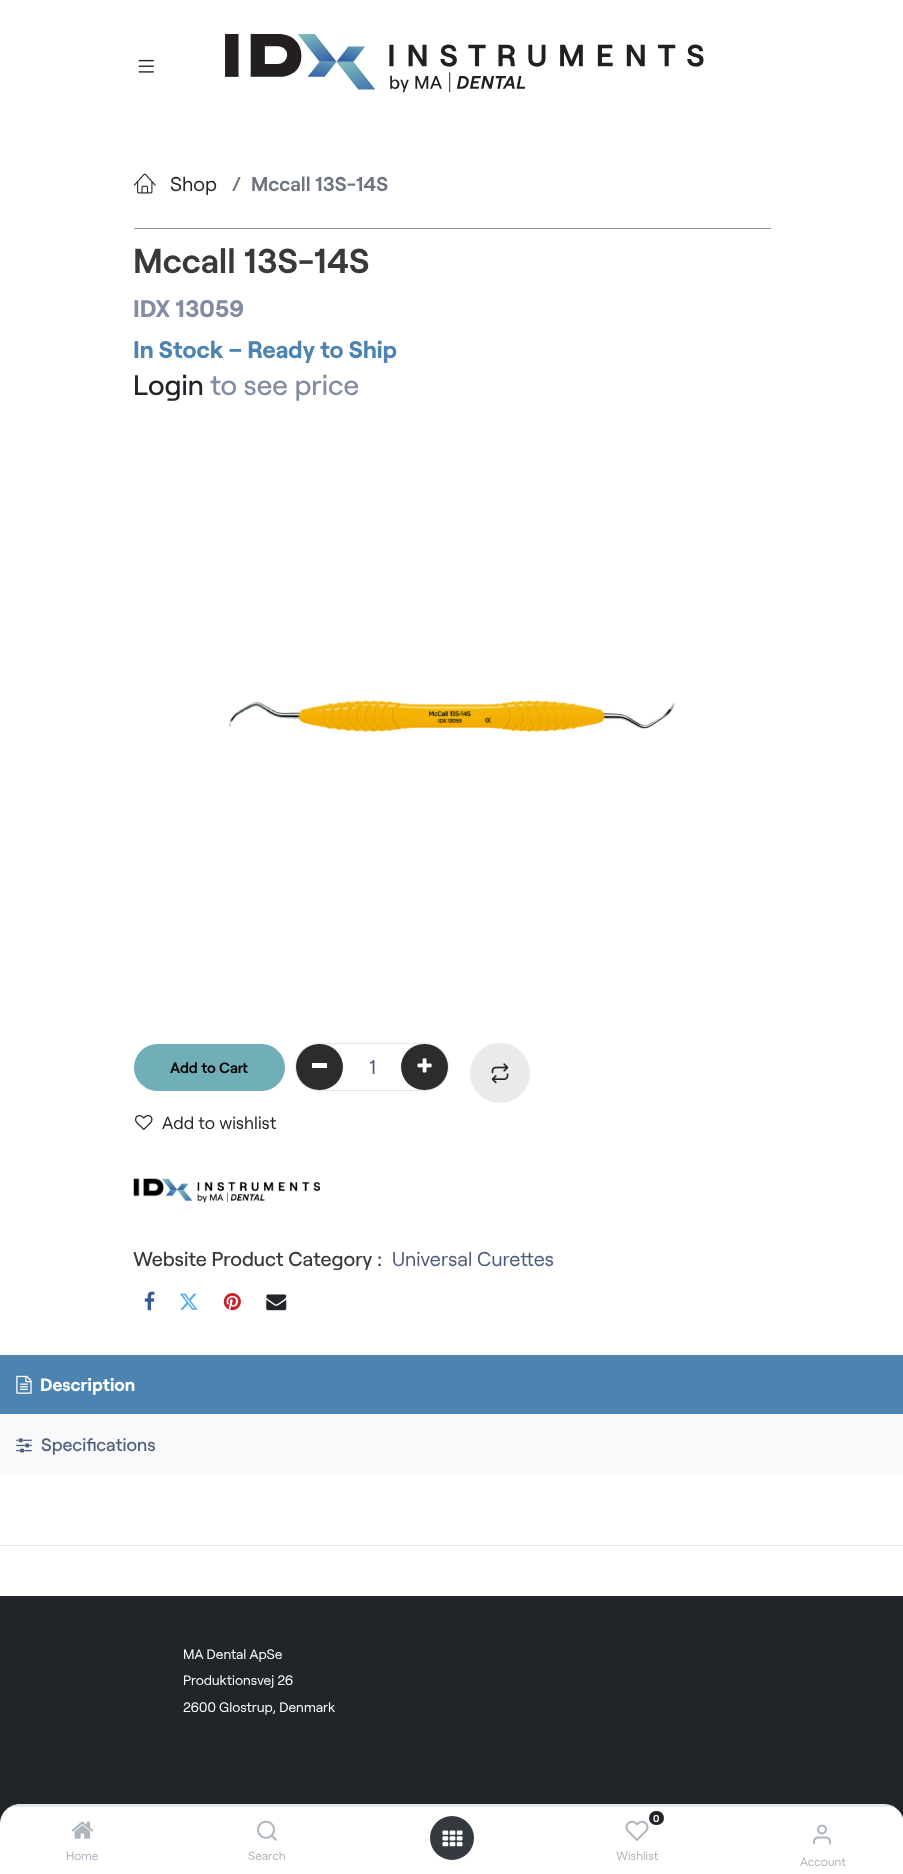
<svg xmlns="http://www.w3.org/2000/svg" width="903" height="1874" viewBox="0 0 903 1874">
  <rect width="100%" height="100%" fill="#fff"/>
  <image x="138" y="59" width="16" height="14" href="img/1.png"/>
  <image x="225" y="34" width="479" height="59" href="img/2.png"/>
  <image x="133" y="173" width="23" height="21" href="img/3.png"/>
  <path d="M134 228h637v1H134z" fill="#919191"/>
  <image x="228" y="696" width="447" height="39" href="img/4.png"/>
  <rect x="134" y="1044" width="151" height="47" rx="23.5" fill="#70aeb8"/>
  <rect x="295.5" y="1043.5" width="153" height="47" rx="23.5" fill="none" stroke="#e4e6eb"/>
  <rect x="296" y="1044" width="47" height="46" rx="23" fill="#2c2c2c"/>
  <path d="M312 1063h15v5H312z" fill="#fff"/>
  <rect x="401" y="1044" width="47" height="46" rx="23" fill="#2c2c2c"/>
  <image x="417" y="1058" width="15" height="15" href="img/5.png"/>
  <circle cx="500" cy="1073" r="30" fill="#eaeaea"/>
  <image x="491" y="1063" width="18" height="21" href="img/6.png"/>
  <image x="135" y="1115" width="18" height="15" href="img/7.png"/>
  <image x="133" y="1178" width="187" height="25" href="img/8.png"/>
  <image x="144" y="1291" width="11" height="20" href="img/9.png"/>
  <image x="180" y="1293" width="18" height="17" href="img/10.png"/>
  <image x="223" y="1293" width="18" height="18" href="img/11.png"/>
  <image x="266" y="1294" width="21" height="17" href="img/12.png"/>
  <path d="M0 1354h903v121H0z" fill="#f8f9fa"/>
  <path d="M0 1355h903v59H0z" fill="#4d83b0"/>
  <image x="16" y="1375" width="16" height="19" href="img/13.png"/>
  <image x="16" y="1438" width="16" height="15" href="img/14.png"/>
  <path d="M0 1545h903v1H0z" fill="#e4e6eb"/>
  <path d="M0 1596h903v228H0z" fill="#212529"/>
  <path d="M20 1804H884C895 1804 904 1813 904 1824V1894H0V1824C0 1813 9 1804 20 1804Z" fill="#fff"/>
  <path d="M10 1804h884v3H10z" fill="#4d5b7c26"/>
  <image x="71" y="1821" width="23" height="18" href="img/15.png"/>
  <image x="257" y="1820" width="20" height="21" href="img/16.png"/>
  <circle cx="452" cy="1838" r="22" fill="#343a40"/>
  <image x="442" y="1830" width="21" height="17" href="img/17.png"/>
  <rect x="649" y="1811" width="15" height="14" rx="7" fill="#212529"/>
  <image x="625" y="1820" width="24" height="21" href="img/18.png"/>
  <image x="813" y="1824" width="18" height="21" href="img/19.png"/>
  <text x="170" y="191" font-family="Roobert" font-size="20" fill="#212529">Shop</text>
  <g font-family="Roobert" font-size="20" font-weight="600" fill="#6c757d">
    <text x="232" y="191">/</text>
    <text x="251" y="191">Mccall 13S-14S</text>
  </g>
  <text x="133" y="273" font-family="Roobert" font-size="34.5" font-weight="600" fill="#393939">Mccall 13S-14S</text>
  <text x="133" y="317" font-family="Roobert" font-size="24" font-weight="bold" fill="#828ca3">IDX 13059</text>
  <text x="133" y="358" font-family="Roobert" font-size="24" font-weight="bold" fill="#4d83b0">In Stock – Ready to Ship</text>
  <text x="133" y="395" font-family="Roobert" font-size="28.25" font-weight="500" fill="#212529">Login</text>
  <text x="210" y="395" font-family="Roobert" font-size="28.25" font-weight="500" fill="#828ca3">to see price</text>
  <text x="170" y="1073" font-family="Roobert" font-size="15" font-weight="600" fill="#000">Add to Cart</text>
  <text x="369" y="1074" font-family="Roobert" font-size="20" fill="#4d5b7c">1</text>
  <text x="162" y="1129" font-family="Roobert" font-size="17.5" fill="#212529">Add to wishlist</text>
  <text x="133" y="1266" font-family="Roobert" font-size="20" font-weight="500" fill="#393939">Website Product Category :</text>
  <text x="392" y="1266" font-family="Roobert" font-size="20" fill="#4d5b7c">Universal Curettes</text>
  <text x="40" y="1391" font-family="Roobert" font-size="18" font-weight="bold" fill="#fff">Description</text>
  <text x="41" y="1451" font-family="Roobert" font-size="18" font-weight="500" fill="#4d5b7c">Specifications</text>
  <g font-family="Roobert" font-size="13.75" fill="#fff">
    <text x="183" y="1659">MA Dental ApSe</text>
    <text x="183" y="1685">Produktionsvej 26</text>
    <text x="183" y="1712">2600 Glostrup, Denmark</text>
  </g>
  <g font-family="Roobert" font-size="12" fill="#adb5bd">
    <text x="66" y="1860">Home</text>
    <text x="248" y="1860">Search</text>
  </g>
  <text x="653" y="1822" font-family="Roobert" font-size="10" font-weight="600" fill="#fff">0</text>
  <g font-family="Roobert" font-size="12" fill="#adb5bd">
    <text x="616" y="1860">Wishlist</text>
    <text x="800" y="1866">Account</text>
  </g>
</svg>
